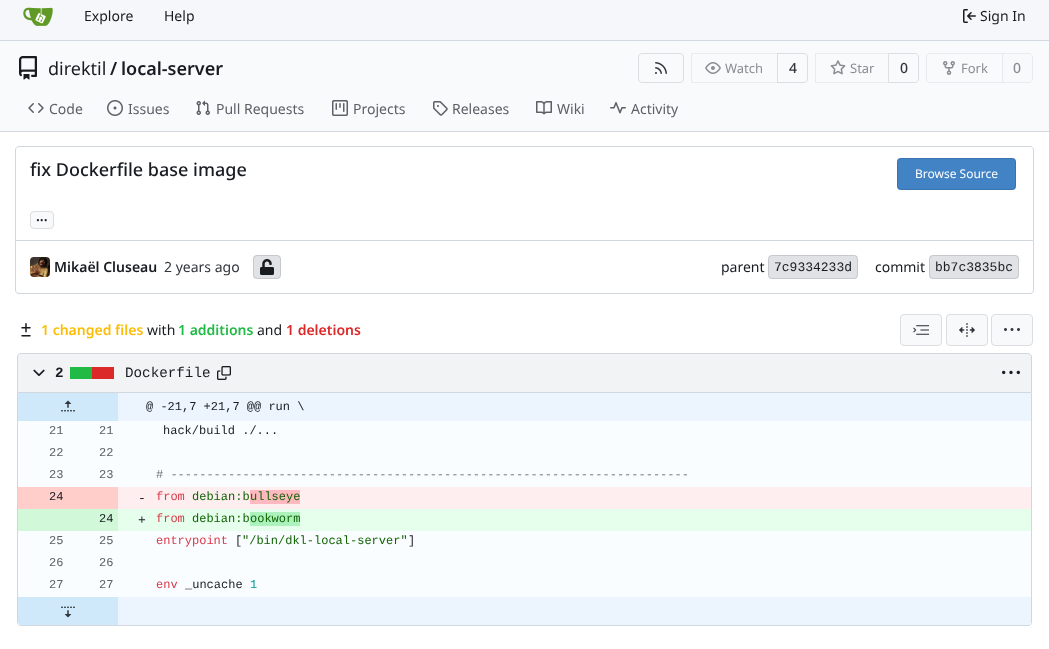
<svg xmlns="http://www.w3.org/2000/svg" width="1049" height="649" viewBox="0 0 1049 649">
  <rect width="100%" height="100%" fill="#fff"/>
  <path d="M0 0h1049v40H0z" fill="#f6f7fa"/>
  <path d="M0 40h1049v1H0z" fill="#d0d7de"/>
  <image x="23" y="7" width="30" height="19" href="img/1.png"/>
  <image x="963" y="9" width="13" height="14" href="img/2.png"/>
  <path d="M0 41h1049v90H0z" fill="#f9fafb"/>
  <image x="19" y="56" width="18" height="24" href="img/3.png"/>
  <rect x="638.5" y="53.5" width="45" height="29" rx="3.5" fill="none" stroke="#dddee1"/>
  <image x="655" y="62" width="12" height="12" href="img/4.png"/>
  <path d="M777.5 53.5H804C806 53.5 807.5 55 807.5 57V79C807.5 81 806 82.5 804 82.5H777.5Z" fill="none" stroke="#dddee1"/>
  <path d="M695 53H778V83H695C693 83 691 81 691 79V57C691 55 693 53 695 53Z" fill="#f8f9fb8c"/>
  <path d="M691.5 53.5h86v29H691.5z" fill="none" stroke="#0000170f"/>
  <image x="705" y="62" width="16" height="12" href="img/5.png"/>
  <path d="M888.5 53.5H915C917 53.5 918.5 55 918.5 57V79C918.5 81 917 82.5 915 82.5H888.5Z" fill="none" stroke="#dddee1"/>
  <path d="M819 53H889V83H819C817 83 815 81 815 79V57C815 55 817 53 819 53Z" fill="#f8f9fb8c"/>
  <path d="M815.5 53.5h73v29H815.5z" fill="none" stroke="#0000170f"/>
  <image x="830" y="60" width="16" height="15" href="img/6.png"/>
  <path d="M930 53.5H1002.5V82.5H930C928 82.5 926.5 81 926.5 79V57C926.5 55 928 53.5 930 53.5Z" fill="none" stroke="#e9eaed"/>
  <image x="943" y="61" width="12" height="14" href="img/7.png"/>
  <path d="M1002.5 53.5H1029C1031 53.5 1032.5 55 1032.5 57V79C1032.5 81 1031 82.5 1029 82.5H1002.5Z" fill="#f8f9fb" stroke="#e9eaed"/>
  <image x="28" y="103" width="16" height="10" href="img/8.png"/>
  <image x="107" y="100" width="16" height="16" href="img/9.png"/>
  <image x="196" y="100" width="14" height="15" href="img/10.png"/>
  <image x="332" y="100" width="16" height="16" href="img/11.png"/>
  <image x="433" y="101" width="15" height="15" href="img/12.png"/>
  <image x="536" y="101" width="16" height="14" href="img/13.png"/>
  <image x="610" y="102" width="16" height="12" href="img/14.png"/>
  <path d="M0 131h1049v1H0z" fill="#d0d7de"/>
  <path d="M19 146.5H1030C1032 146.5 1033.5 148 1033.5 150V240.5H15.5V150C15.5 148 17 146.5 19 146.5Z" fill="none" stroke="#d0d7de"/>
  <rect x="897" y="158" width="119" height="32" rx="4" fill="#4183c4"/>
  <rect x="897.5" y="158.5" width="118" height="31" rx="3.5" fill="none" stroke="#0000171c"/>
  <rect x="30.5" y="211.5" width="23" height="17" rx="3.5" fill="#f8f9fb" stroke="#dcdde1"/>
  <path d="M15 241H1034V290C1034 292 1032 294 1030 294H19C17 294 15 292 15 290ZM16 241H1033V290C1033 292 1032 293 1030 293H19C17 293 16 292 16 290Z" fill="#d0d7de" fill-rule="evenodd"/>
  <image x="30" y="257" width="20" height="20" href="img/15.png"/>
  <rect x="253" y="255" width="28" height="24" rx="4" fill="#e0e2e5"/>
  <rect x="253.5" y="255.5" width="27" height="23" rx="3.5" fill="none" stroke="#0000171c"/>
  <image x="260" y="259" width="14" height="16" href="img/16.png"/>
  <rect x="768" y="255" width="90" height="24" rx="4" fill="#e0e2e5"/>
  <rect x="768.5" y="255.5" width="89" height="23" rx="3.5" fill="none" stroke="#0000171c"/>
  <rect x="929" y="255" width="90" height="24" rx="4" fill="#e0e2e5"/>
  <rect x="929.5" y="255.5" width="89" height="23" rx="3.5" fill="none" stroke="#0000171c"/>
  <image x="21" y="323" width="10" height="14" href="img/17.png"/>
  <rect x="900.5" y="314.5" width="41" height="31" rx="3.5" fill="#f8f9fb" stroke="#dcdde1"/>
  <image x="913" y="325" width="16" height="10" href="img/18.png"/>
  <rect x="946.5" y="314.5" width="41" height="31" rx="3.5" fill="#f8f9fb" stroke="#dcdde1"/>
  <image x="959" y="323" width="16" height="14" href="img/19.png"/>
  <rect x="991.5" y="314.5" width="41" height="31" rx="3.5" fill="#f8f9fb" stroke="#dcdde1"/>
  <image x="1004" y="328" width="16" height="3" href="img/20.png"/>
  <path d="M21 353.5H1028C1030 353.5 1031.5 355 1031.5 357V392.5H17.5V357C17.5 355 19 353.5 21 353.5Z" fill="#f1f3f5" stroke="#d0d7de"/>
  <image x="33" y="369" width="12" height="7" href="img/21.png"/>
  <path d="M92 367h22v12H92z" fill="#db2828"/>
  <path d="M70 367h22v12H70z" fill="#21ba45"/>
  <image x="217" y="366" width="14" height="14" href="img/22.png"/>
  <image x="1002" y="370" width="18" height="5" href="img/23.png"/>
  <path d="M17 393H1032V622C1032 624 1030 626 1028 626H21C19 626 17 624 17 622ZM18 393H1031V622C1031 624 1030 625 1028 625H21C19 625 18 624 18 622Z" fill="#d0d7de" fill-rule="evenodd"/>
  <rect x="18" y="393" width="1013" height="232" rx="4" fill="#fafdff"/>
  <path d="M118 393h913v28H118z" fill="#ecf5fd"/>
  <path d="M18 393h100v28H18z" fill="#cfe8fa"/>
  <image x="61" y="400" width="14" height="12" href="img/24.png"/>
  <path d="M118 487h913v22H118z" fill="#ffeef0"/>
  <path d="M18 487h100v22H18z" fill="#ffcecb"/>
  <path d="M250 490h50v14H250z" fill="#fdb8c0"/>
  <path d="M118 509h913v22H118z" fill="#e6ffed"/>
  <path d="M18 509h100v22H18z" fill="#d1f8d9"/>
  <path d="M250 512h50v14H250z" fill="#acf2bd"/>
  <path d="M18 597H118V625H21C19.5 625 18 623.5 18 622Z" fill="#cfe8fa"/>
  <image x="61" y="606" width="14" height="12" href="img/25.png"/>
  <path d="M118 597h28v28H118z" fill="#ecf5fd"/>
  <path d="M146 597H1031V622C1031 623.5 1029.5 625 1028 625H146Z" fill="#ecf5fd"/>
  <g font-family="Noto Sans" font-size="14" fill="#181c21">
    <text x="84" y="21">Explore</text>
    <text x="164" y="21">Help</text>
    <text x="980" y="21">Sign In</text>
  </g>
  <text x="48" y="75" font-family="Noto Sans" font-size="18" fill="#181c21">direktil</text>
  <g font-family="Noto Sans" font-size="18" font-weight="600" fill="#181c21">
    <text x="110" y="75">/</text>
    <text x="121" y="75">local-server</text>
  </g>
  <text x="725" y="73" font-family="Noto Sans" font-size="13" fill="#8a8e91">Watch</text>
  <text x="789" y="73" font-family="Noto Sans" font-size="14" font-weight="500" fill="#30363b">4</text>
  <text x="850" y="73" font-family="Noto Sans" font-size="13" fill="#8a8e91">Star</text>
  <text x="900" y="73" font-family="Noto Sans" font-size="14" font-weight="500" fill="#30363b">0</text>
  <text x="961" y="73" font-family="Noto Sans" font-size="13" fill="#8a8e91">Fork</text>
  <text x="1013" y="73" font-family="Noto Sans" font-size="14" font-weight="500" fill="#8a8e91">0</text>
  <g font-family="Noto Sans" font-size="14" fill="#5b6167">
    <text x="49" y="114">Code</text>
    <text x="128" y="114">Issues</text>
    <text x="216" y="114">Pull Requests</text>
    <text x="353" y="114">Projects</text>
    <text x="452" y="114">Releases</text>
    <text x="557" y="114">Wiki</text>
    <text x="631" y="114">Activity</text>
  </g>
  <text x="30" y="176" font-family="Noto Sans" font-size="18" font-weight="500" fill="#181c21">fix Dockerfile base image</text>
  <text x="915" y="178" font-family="Noto Sans" font-size="12" fill="#fff">Browse Source</text>
  <g font-family="Noto Sans" font-size="14" font-weight="600" fill="#181c21">
    <text x="36" y="221">...</text>
    <text x="54" y="272">Mikaël Cluseau</text>
  </g>
  <text x="164" y="272" font-family="Noto Sans" font-size="14" fill="#30363b">2 years ago</text>
  <text x="721" y="272" font-family="Noto Sans" font-size="14" fill="#181c21">parent</text>
  <text x="774" y="271" font-family="Liberation Mono" font-size="13" fill="#181c21">7c9334233d</text>
  <text x="875" y="272" font-family="Noto Sans" font-size="14" fill="#181c21">commit</text>
  <text x="935" y="271" font-family="Liberation Mono" font-size="13" fill="#181c21">bb7c3835bc</text>
  <text x="41" y="335" font-family="Noto Sans" font-size="14" font-weight="600" fill="#fbbd08">1 changed files</text>
  <text x="147" y="335" font-family="Noto Sans" font-size="14" fill="#181c21">with</text>
  <text x="178" y="335" font-family="Noto Sans" font-size="14" font-weight="600" fill="#21ba45">1 additions</text>
  <text x="257" y="335" font-family="Noto Sans" font-size="14" fill="#181c21">and</text>
  <text x="286" y="335" font-family="Noto Sans" font-size="14" font-weight="600" fill="#db2828">1 deletions</text>
  <text x="55" y="377" font-family="Liberation Mono" font-size="14.25" font-weight="bold" fill="#181c21">2</text>
  <text x="125" y="377" font-family="Liberation Mono" font-size="14.25" fill="#181c21">Dockerfile</text>
  <text x="146" y="410" font-family="Liberation Mono" font-size="12" fill="#181c21">@ -21,7 +21,7 @@ run \</text>
  <g font-family="Liberation Mono" font-size="12" fill="#5b6167">
    <text x="49" y="434">21</text>
    <text x="99" y="434">21</text>
  </g>
  <text x="163" y="434" font-family="Liberation Mono" font-size="12" fill="#181c21">hack/build ./...</text>
  <g font-family="Liberation Mono" font-size="12" fill="#5b6167">
    <text x="49" y="456">22</text>
    <text x="99" y="456">22</text>
    <text x="49" y="478">23</text>
    <text x="99" y="478">23</text>
  </g>
  <text x="156" y="478" font-family="Liberation Mono" font-size="12" fill="#6a737d"># ------------------------------------------------------------------------</text>
  <text x="49" y="500" font-family="Liberation Mono" font-size="12" fill="#181c21">24</text>
  <text x="138" y="502" font-family="Liberation Mono" font-size="13" fill="#181c21">-</text>
  <text x="156" y="500" font-family="Liberation Mono" font-size="12" fill="#d73a49">from</text>
  <g font-family="Liberation Mono" font-size="12" fill="#106303">
    <text x="192" y="500">debian:b</text>
    <text x="250" y="500">ullseye</text>
  </g>
  <text x="156" y="522" font-family="Liberation Mono" font-size="12" fill="#d73a49">from</text>
  <g font-family="Liberation Mono" font-size="12" fill="#106303">
    <text x="192" y="522">debian:b</text>
    <text x="250" y="522">ookworm</text>
  </g>
  <text x="99" y="522" font-family="Liberation Mono" font-size="12" fill="#181c21">24</text>
  <text x="138" y="524" font-family="Liberation Mono" font-size="13" fill="#181c21">+</text>
  <g font-family="Liberation Mono" font-size="12" fill="#5b6167">
    <text x="49" y="544">25</text>
    <text x="99" y="544">25</text>
  </g>
  <text x="156" y="544" font-family="Liberation Mono" font-size="12" fill="#d73a49">entrypoint</text>
  <text x="235" y="544" font-family="Liberation Mono" font-size="12" fill="#181c21">[</text>
  <text x="242" y="544" font-family="Liberation Mono" font-size="12" fill="#106303">"/bin/dkl-local-server"</text>
  <text x="408" y="544" font-family="Liberation Mono" font-size="12" fill="#181c21">]</text>
  <g font-family="Liberation Mono" font-size="12" fill="#5b6167">
    <text x="49" y="566">26</text>
    <text x="99" y="566">26</text>
    <text x="49" y="588">27</text>
    <text x="99" y="588">27</text>
  </g>
  <text x="156" y="588" font-family="Liberation Mono" font-size="12" fill="#d73a49">env</text>
  <text x="185" y="588" font-family="Liberation Mono" font-size="12" fill="#181c21">_uncache</text>
  <text x="250" y="588" font-family="Liberation Mono" font-size="12" fill="#099">1</text>
</svg>
